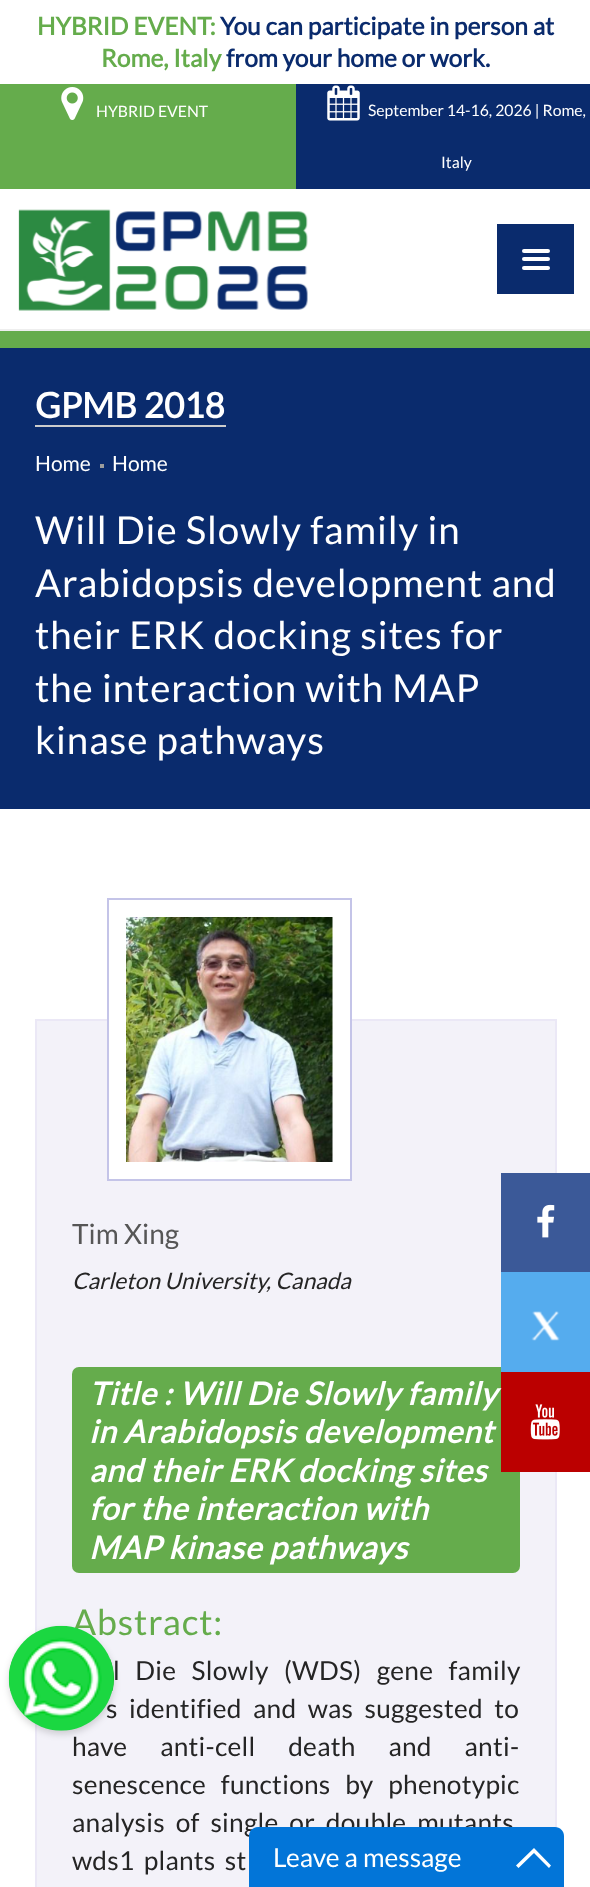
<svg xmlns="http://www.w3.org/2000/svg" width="590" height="1887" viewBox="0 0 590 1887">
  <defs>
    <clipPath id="clip1"><rect x="9" y="1626" width="105" height="105" rx="52.5"/></clipPath>
  </defs>
  <rect width="100%" height="100%" fill="#fff"/>
  <path d="M0 84h296v105H0z" fill="#65ac4c"/>
  <image x="61" y="87" width="23" height="33" href="img/1.png"/>
  <path d="M296 84h294v105H296z" fill="#0a2b6d"/>
  <image x="327" y="85" width="33" height="36" href="img/2.png"/>
  <path d="M0 331h590v17H0z" fill="#65ac4c"/>
  <path d="M0 329h590v2H0z" fill="#eee"/>
  <image x="18" y="209" width="290" height="102" href="img/3.png"/>
  <path d="M497 224h77v70H497z" fill="#0a2b6d"/>
  <rect x="522" y="257" width="28" height="4" rx="2" fill="#fff"/>
  <rect x="522" y="249" width="28" height="4" rx="2" fill="#fff"/>
  <rect x="522" y="266" width="28" height="4" rx="2" fill="#fff"/>
  <path d="M0 348h590v461H0z" fill="#0a2b6d"/>
  <path d="M35 425h191v2H35z" fill="#ccc"/>
  <path d="M100 464h4v4H100z" fill="#9d9d9d"/>
  <path d="M36 1020h520v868H36z" fill="#f3f2f9" stroke="#ebe8f6" stroke-width="2"/>
  <rect x="9" y="1629" width="105" height="105" rx="52.5" fill="#00000029" filter="blur(3.5px)"/>
  <g clip-path="url(#clip1)">
    <path d="M9 1659h105v32H9z" fill="#11b925"/>
  </g>
  <path d="M109 1019h241v160H109z" fill="#fff"/>
  <path d="M108 899h243v281H108z" fill="none" stroke="#c4c4e8" stroke-width="2"/>
  <image x="126" y="917" width="207" height="245" href="img/5.png"/>
  <rect x="72" y="1367" width="448" height="206" rx="7" fill="#65ac4c"/>
  <path d="M501 1173h89v99H501z" fill="#3b5998"/>
  <image x="537" y="1204" width="18" height="34" href="img/6.png"/>
  <path d="M501 1272h89v100H501z" fill="#55acee"/>
  <image x="531" y="1311" width="29" height="30" href="img/7.png"/>
  <path d="M501 1372h89v100H501z" fill="#b00"/>
  <image x="530" y="1404" width="30" height="36" href="img/8.png"/>
  <text x="37" y="35" font-family="Lato" font-size="24.5" font-weight="bold" fill="#65ac4c">HYBRID EVENT:</text>
  <text x="220" y="35" font-family="Lato" font-size="24.5" font-weight="bold" fill="#0a2b6d">You can participate in person at</text>
  <text x="101" y="67" font-family="Lato" font-size="24.5" font-weight="bold" fill="#65ac4c">Rome, Italy</text>
  <text x="226" y="67" font-family="Lato" font-size="24.5" font-weight="bold" fill="#0a2b6d">from your home or work.</text>
  <g font-family="Lato" font-size="15.75" fill="#fff">
    <text x="96" y="117">HYBRID EVENT</text>
    <text x="368" y="116">September 14-16, 2026 | Rome,</text>
    <text x="441" y="168">Italy</text>
  </g>
  <text x="35" y="418" font-family="Lato" font-size="35" font-weight="bold" fill="#fff">GPMB 2018</text>
  <g font-family="Lato" font-size="21" fill="#fff">
    <text x="35" y="471">Home</text>
    <text x="112" y="471">Home</text>
  </g>
  <g font-family="Lato" font-size="38.5" letter-spacing="0.9" fill="#fff">
    <text x="35" y="544">Will Die Slowly family in</text>
    <text x="35" y="597">Arabidopsis development and</text>
    <text x="35" y="649">their ERK docking sites for</text>
    <text x="35" y="702">the interaction with MAP</text>
    <text x="35" y="754">kinase pathways</text>
  </g>
  <text x="72" y="1244" font-family="Lato" font-size="28" fill="#565656">Tim Xing</text>
  <text x="72" y="1289" font-family="Lato" font-size="22.75" font-style="italic" fill="#252525">Carleton University, Canada</text>
  <g font-family="Lato" font-size="31.5" font-weight="bold" font-style="italic" letter-spacing="0.9" fill="#fff">
    <text x="89" y="1405">Title : Will Die Slowly family</text>
    <text x="89" y="1443">in Arabidopsis development</text>
    <text x="89" y="1482">and their ERK docking sites</text>
    <text x="89" y="1520">for the interaction with</text>
    <text x="89" y="1559">MAP kinase pathways</text>
  </g>
  <text x="72" y="1635" font-family="Lato" font-size="35.5" letter-spacing="0.9" fill="#65ac4c">Abstract:</text>
  <g font-family="Lato" font-size="26.25" letter-spacing="0.25" fill="#252525">
    <text x="113" y="1680" word-spacing="10">l Die Slowly (WDS) gene family</text>
    <text x="106" y="1718" word-spacing="6">s identified and was suggested to</text>
  </g>
  <image x="8" y="1625" width="106" height="106" href="img/4.png"/>
  <g font-family="Lato" font-size="26.25" letter-spacing="0.25" fill="#252525">
    <text x="72" y="1756" word-spacing="27.5">have anti-cell death and anti-</text>
    <text x="72" y="1794" word-spacing="9.5">senescence functions by phenotypic</text>
    <text x="72" y="1832" word-spacing="5.5">analysis of single or double mutants</text>
    <text x="72" y="1870" word-spacing="4">wds1 plants st</text>
  </g>
  <path d="M258 1827H555C560 1827 564 1831 564 1836V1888H249V1836C249 1831 253 1827 258 1827Z" fill="#0275d8"/>
  <text x="273" y="1867" font-family="Lato" font-size="26.25" fill="#fff">Leave a message</text>
  <path d="M534 1848L551 1865.5L549 1868L534 1853L518.5 1868L516 1865.5Z" fill="#fff"/>
</svg>
